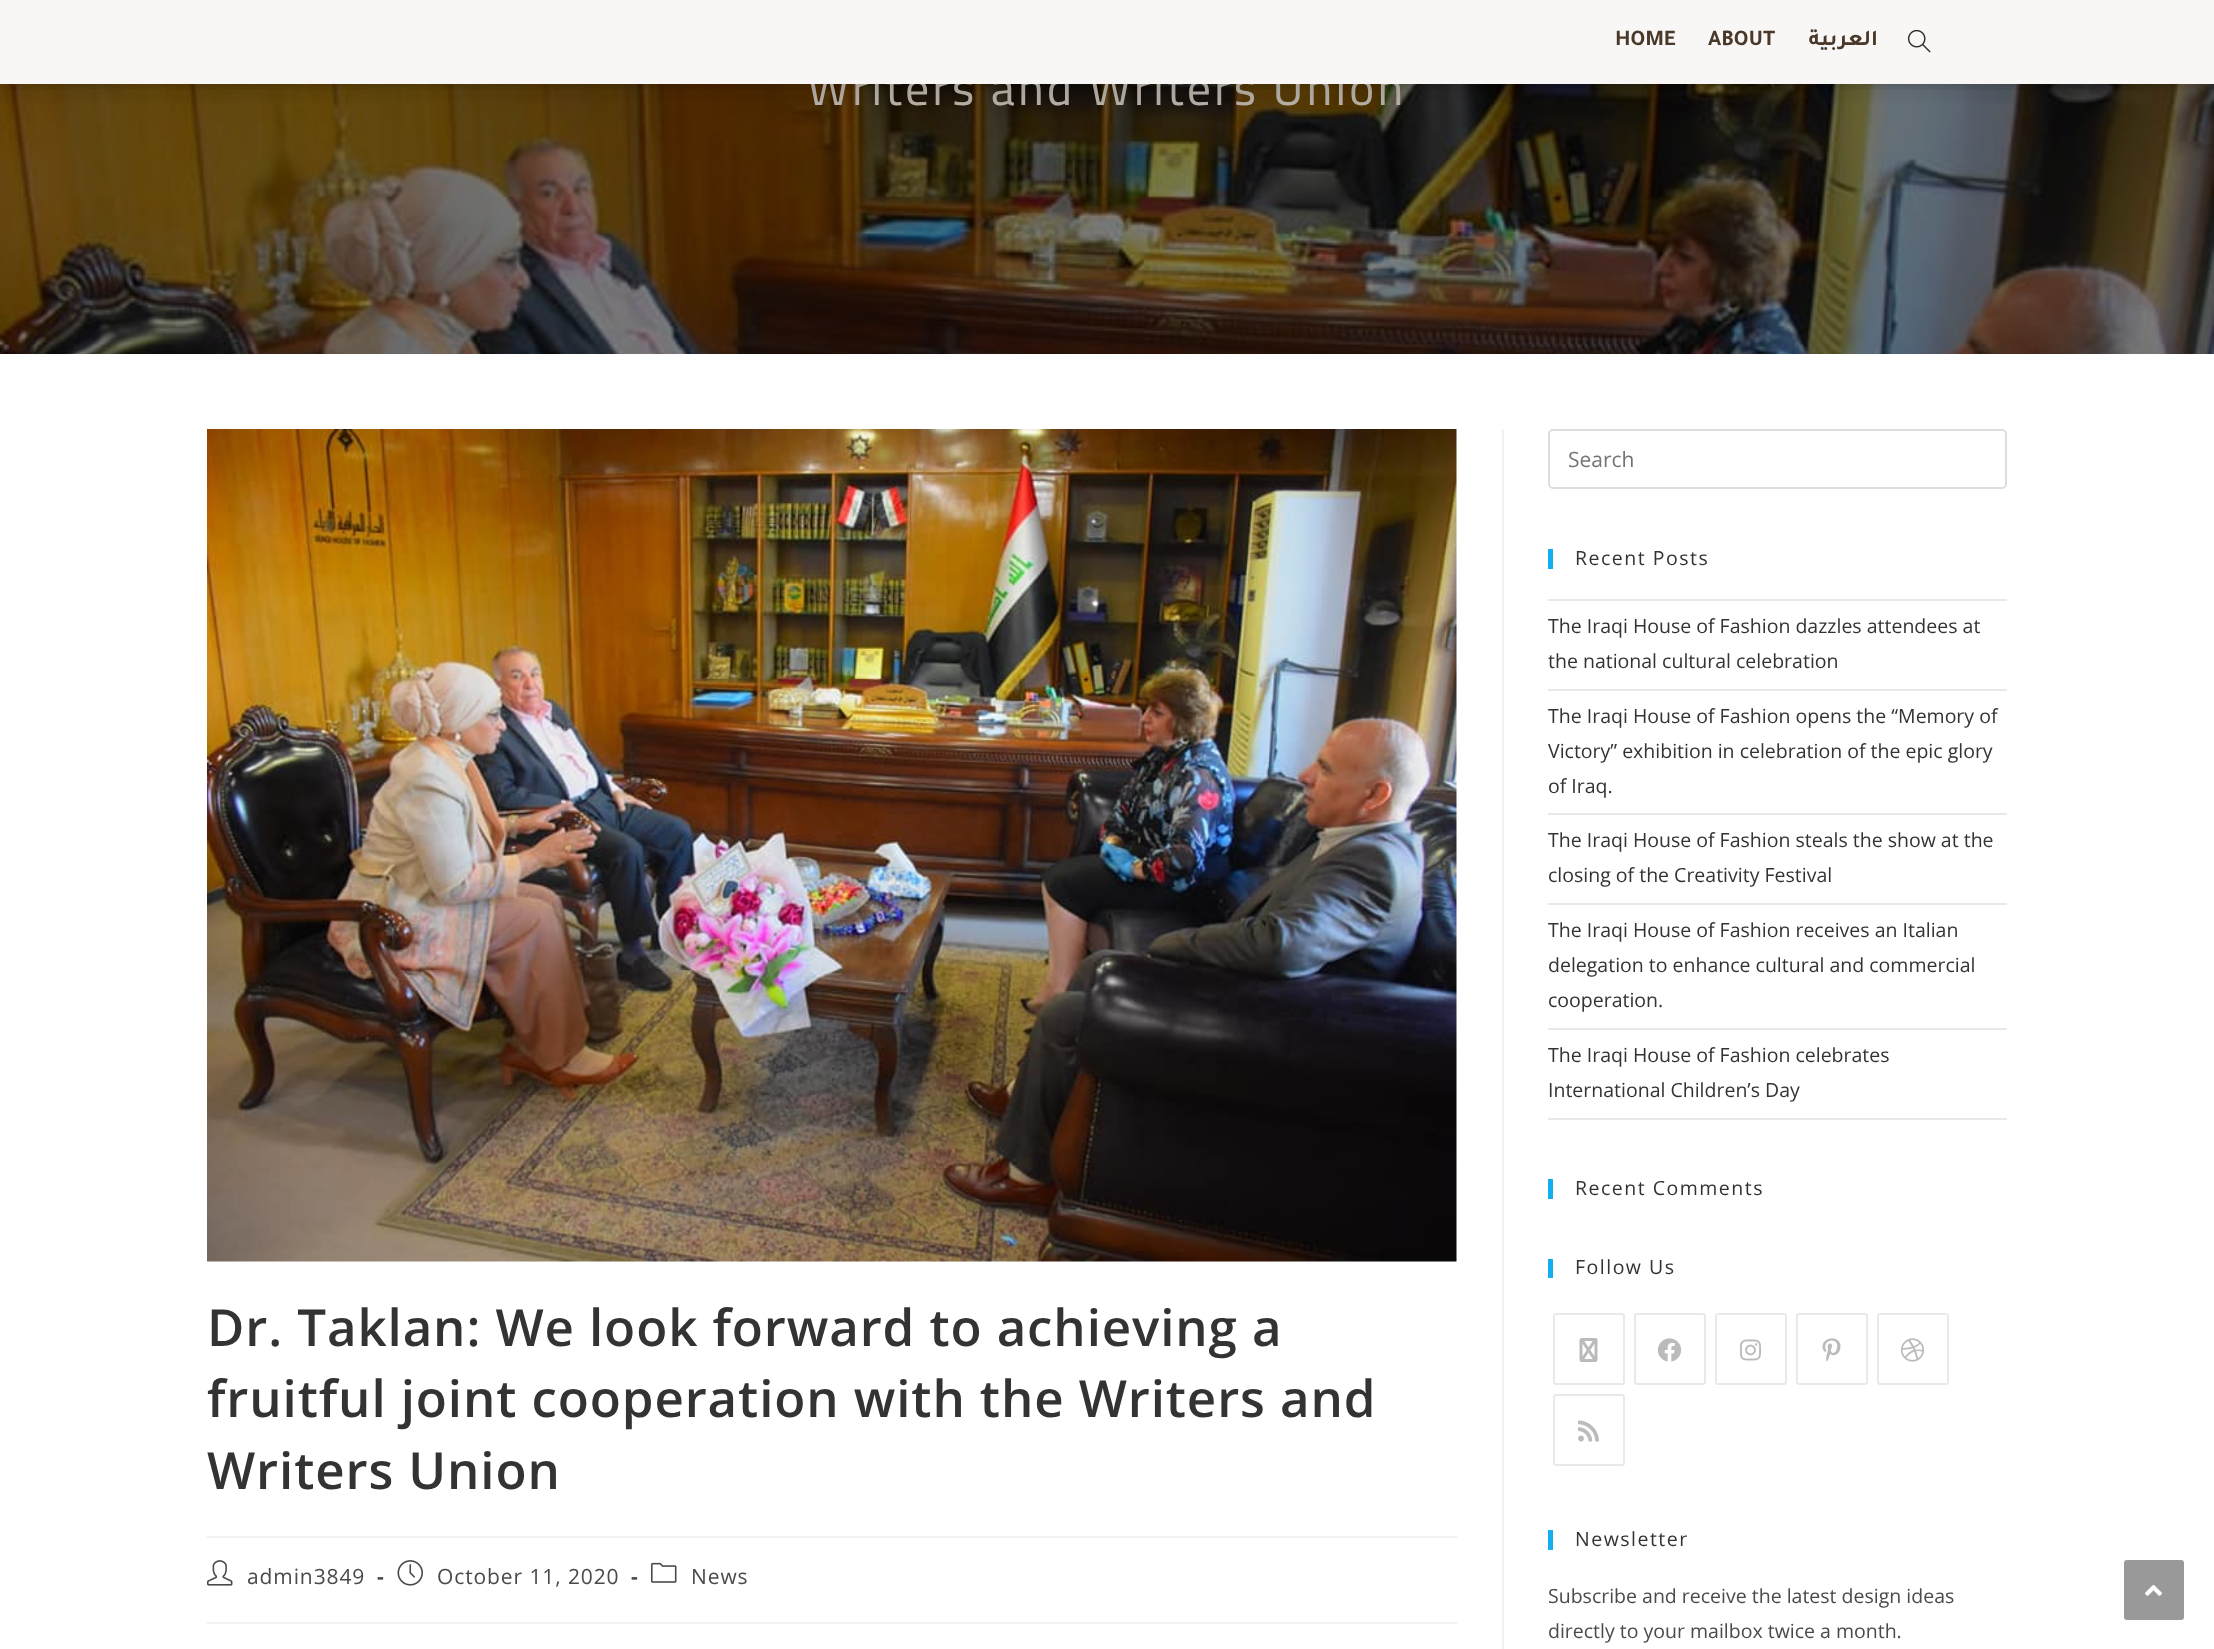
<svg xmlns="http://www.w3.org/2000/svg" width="2214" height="1649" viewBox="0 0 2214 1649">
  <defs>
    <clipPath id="clip1"><path d="M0 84h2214v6H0z"/></clipPath>
    <clipPath id="clip2"><path d="M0 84h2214v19H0z"/></clipPath>
  </defs>
  <rect width="100%" height="100%" fill="#fff"/>
  <image x="0" y="0" width="2214" height="354" href="img/2.png"/>
  <g clip-path="url(#clip1)">
    <path d="M0 3h2214v84H0z" fill="#0000001a" filter="blur(4px)"/>
  </g>
  <path d="M1502 429h2v1220H1502z" fill="#f1f1f1"/>
  <image x="207" y="429" width="1250" height="833" href="img/3.png"/>
  <path d="M207 1536h1250v2H207z" fill="#f1f1f1"/>
  <path d="M207 1622h1250v2H207z" fill="#f1f1f1"/>
  <image x="207" y="1560" width="26" height="26" href="img/4.png"/>
  <image x="397" y="1560" width="26" height="26" href="img/5.png"/>
  <image x="651" y="1562" width="26" height="21" href="img/6.png"/>
  <rect x="1549" y="430" width="457" height="58" rx="4" fill="none" stroke="#ddd" stroke-width="2"/>
  <path d="M1548 549h5v20H1548z" fill="#13aff0"/>
  <path d="M1548 599h459v2H1548z" fill="#e9e9e9"/>
  <path d="M1548 689h459v2H1548z" fill="#e9e9e9"/>
  <path d="M1548 813h459v2H1548z" fill="#e9e9e9"/>
  <path d="M1548 903h459v2H1548z" fill="#e9e9e9"/>
  <path d="M1548 1028h459v2H1548z" fill="#e9e9e9"/>
  <path d="M1548 1118h459v2H1548z" fill="#e9e9e9"/>
  <path d="M1548 1179h5v20H1548z" fill="#13aff0"/>
  <path d="M1548 1259h5v19H1548z" fill="#13aff0"/>
  <rect x="1554" y="1314" width="70" height="70" rx="2" fill="none" stroke="#e9e9e9" stroke-width="2"/>
  <image x="1579" y="1338" width="19" height="24" href="img/7.png"/>
  <rect x="1635" y="1314" width="70" height="70" rx="2" fill="none" stroke="#e9e9e9" stroke-width="2"/>
  <image x="1657" y="1338" width="25" height="24" href="img/8.png"/>
  <rect x="1716" y="1314" width="70" height="70" rx="2" fill="none" stroke="#e9e9e9" stroke-width="2"/>
  <image x="1740" y="1339" width="21" height="22" href="img/9.png"/>
  <rect x="1797" y="1314" width="70" height="70" rx="2" fill="none" stroke="#e9e9e9" stroke-width="2"/>
  <image x="1822" y="1338" width="19" height="24" href="img/10.png"/>
  <rect x="1878" y="1314" width="70" height="70" rx="2" fill="none" stroke="#e9e9e9" stroke-width="2"/>
  <image x="1900" y="1338" width="25" height="24" href="img/11.png"/>
  <rect x="1554" y="1395" width="70" height="70" rx="2" fill="none" stroke="#e9e9e9" stroke-width="2"/>
  <image x="1578" y="1420" width="21" height="22" href="img/12.png"/>
  <path d="M1548 1530h5v20H1548z" fill="#13aff0"/>
  <rect x="2124" y="1560" width="60" height="60" rx="3" fill="#999"/>
  <image x="2145" y="1585" width="17" height="11" href="img/13.png"/>
  <text x="807" y="105" font-family="Cairo" font-size="48" letter-spacing="3" fill="#b4aea5">Writers and Writers Union</text>
  <path d="M0 0h2214v84H0z" fill="#fffffff2"/>
  <g clip-path="url(#clip2)">
    <path d="M0 0h2214v84H0z" fill="#00000024" filter="blur(18px)"/>
  </g>
  <path d="M0 0h2214v84H0z" fill="#f8f7f6f2"/>
  <text x="1878" y="45" font-family="Tajawal" font-size="22.5" font-weight="bold" direction="rtl" fill="#4a3929">العربية</text>
  <g font-family="Tajawal" font-size="22.5" font-weight="bold" fill="#4a3929">
    <text x="1708" y="45">ABOUT</text>
    <text x="1615" y="45">HOME</text>
  </g>
  <image x="1907" y="29" width="24" height="24" href="img/1.png"/>
  <g font-family="Open Sans" font-size="51" font-weight="600" letter-spacing="0.9" fill="#333">
    <text x="207" y="1346">Dr. Taklan: We look forward to achieving a</text>
    <text x="207" y="1417">fruitful joint cooperation with the Writers and</text>
    <text x="207" y="1489">Writers Union</text>
  </g>
  <text x="247" y="1584" font-family="Open Sans" font-size="21" letter-spacing="0.9" fill="#4a4a4a">admin3849</text>
  <text x="377" y="1584" font-family="Open Sans" font-size="21" font-weight="bold" letter-spacing="0.9" fill="#4a4a4a">-</text>
  <text x="437" y="1584" font-family="Open Sans" font-size="21" letter-spacing="0.9" fill="#4a4a4a">October 11, 2020</text>
  <text x="631" y="1584" font-family="Open Sans" font-size="21" font-weight="bold" letter-spacing="0.9" fill="#4a4a4a">-</text>
  <text x="691" y="1584" font-family="Open Sans" font-size="21" letter-spacing="0.9" fill="#4a4a4a">News</text>
  <text x="1568" y="467" font-family="Open Sans" font-size="21" fill="#757575">Search</text>
  <text x="1575" y="565" font-family="Open Sans" font-size="19.5" letter-spacing="1.5" fill="#333">Recent Posts</text>
  <g font-family="Open Sans" font-size="19.5" fill="#333">
    <text x="1548" y="633">The Iraqi House of Fashion dazzles attendees at</text>
    <text x="1548" y="668">the national cultural celebration</text>
    <text x="1548" y="723">The Iraqi House of Fashion opens the “Memory of</text>
    <text x="1548" y="758">Victory” exhibition in celebration of the epic glory</text>
    <text x="1548" y="793">of Iraq.</text>
    <text x="1548" y="847">The Iraqi House of Fashion steals the show at the</text>
    <text x="1548" y="882">closing of the Creativity Festival</text>
    <text x="1548" y="937">The Iraqi House of Fashion receives an Italian</text>
    <text x="1548" y="972">delegation to enhance cultural and commercial</text>
    <text x="1548" y="1007">cooperation.</text>
    <text x="1548" y="1062">The Iraqi House of Fashion celebrates</text>
    <text x="1548" y="1097">International Children’s Day</text>
  </g>
  <g font-family="Open Sans" font-size="19.5" letter-spacing="1.5" fill="#333">
    <text x="1575" y="1195">Recent Comments</text>
    <text x="1575" y="1274">Follow Us</text>
    <text x="1575" y="1546">Newsletter</text>
  </g>
  <g font-family="Open Sans" font-size="19.5" fill="#4a4a4a">
    <text x="1548" y="1603">Subscribe and receive the latest design ideas</text>
    <text x="1548" y="1638">directly to your mailbox twice a month.</text>
  </g>
</svg>
